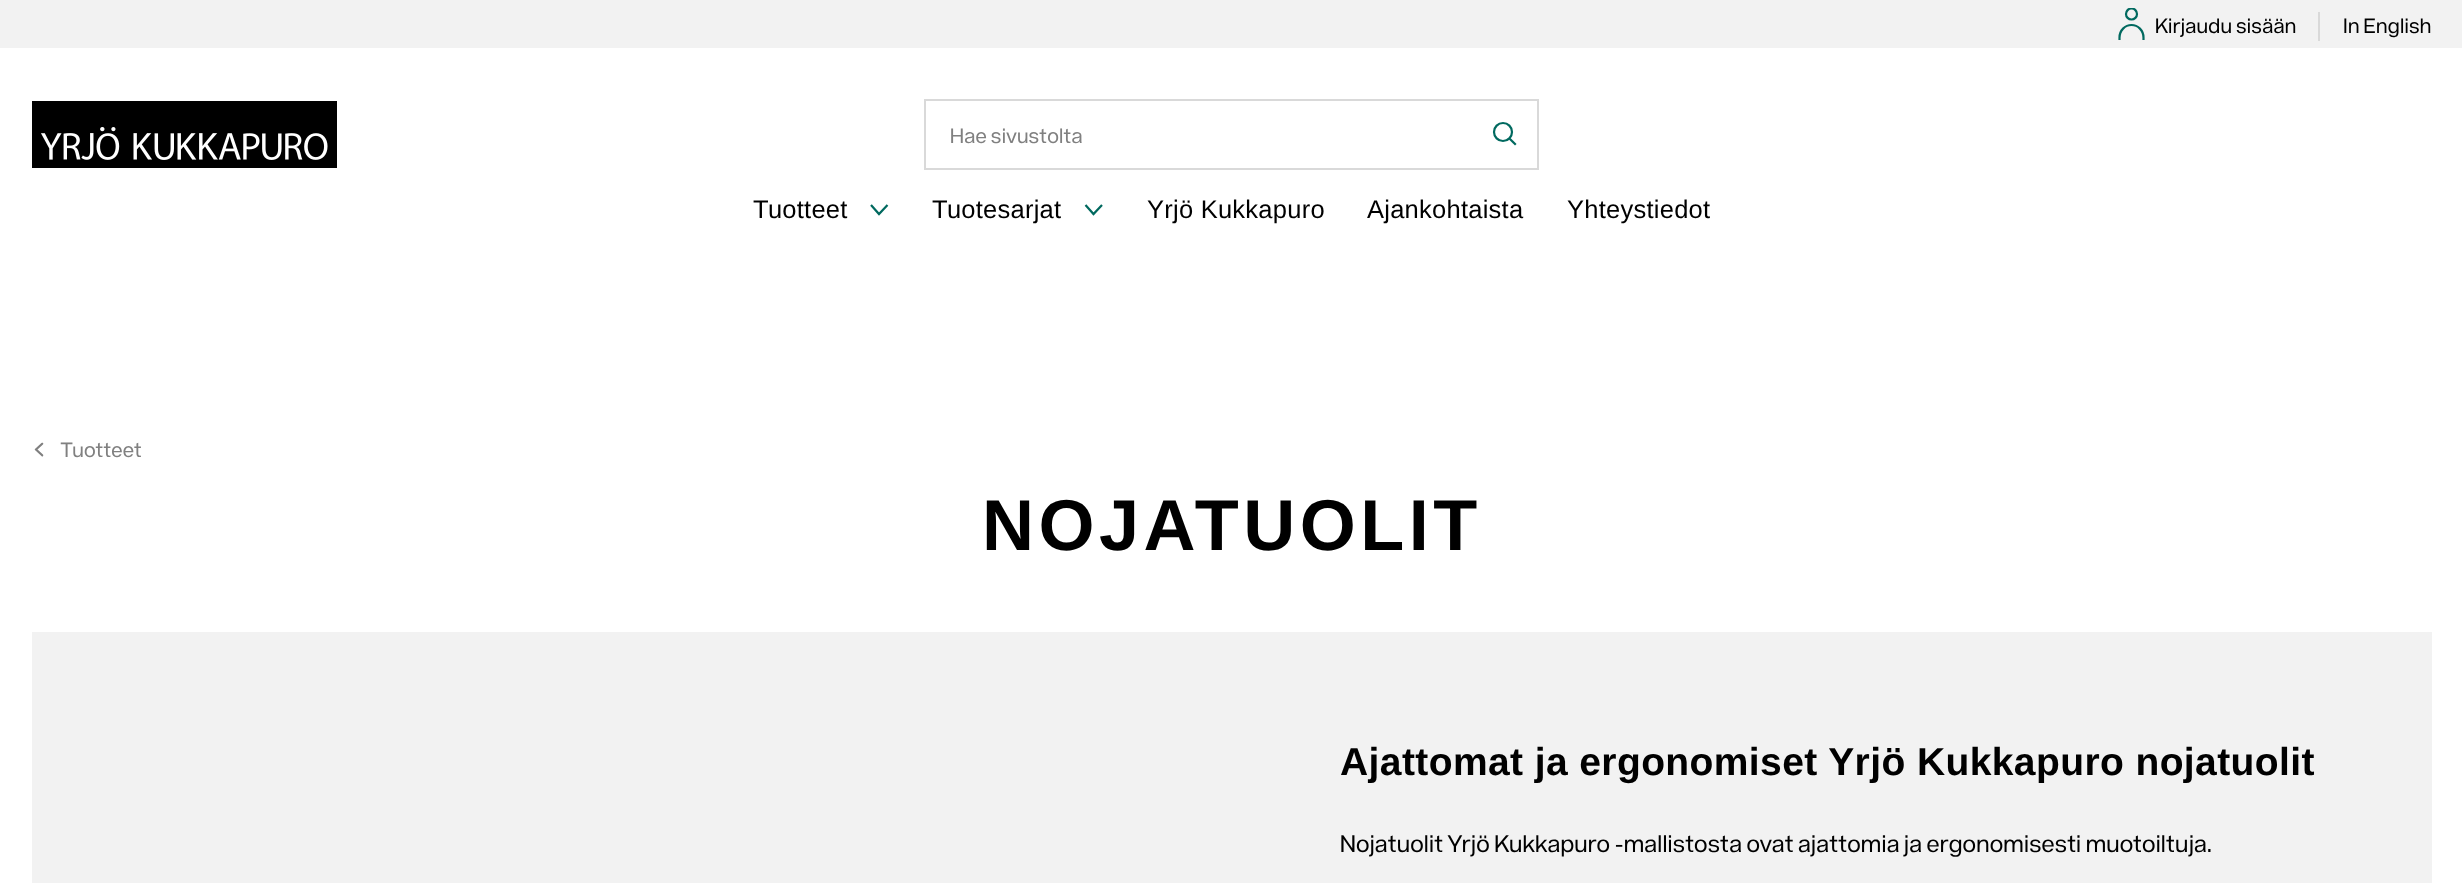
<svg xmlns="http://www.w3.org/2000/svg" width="2462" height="883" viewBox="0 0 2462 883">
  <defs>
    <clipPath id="clip1"><path d="M2118 8h27v33H2118z"/></clipPath>
    <clipPath id="clip2"><path d="M43.5 442.5V457.5H34.5V442.5Z"/></clipPath>
  </defs>
  <rect width="100%" height="100%" fill="#fff"/>
  <path d="M0 0h2462v48H0z" fill="#f2f2f2"/>
  <path d="M2143.5 40V37.5C2143.5 30.5 2138 25 2131.5 25C2125 25 2119.5 30.5 2119.5 37.5V40" fill="none" stroke="#00695f" stroke-width="2.2"/>
  <g clip-path="url(#clip1)">
    <circle cx="2131.5" cy="14" r="5.5" fill="none" stroke="#00695f" stroke-width="2.2"/>
  </g>
  <path d="M2318 12h2v29H2318z" fill="#d9d9d9"/>
  <image x="32" y="101" width="305" height="67" href="img/1.png"/>
  <path d="M925 100h613v69H925z" fill="none" stroke="#d9d9d9" stroke-width="2"/>
  <circle cx="1503" cy="132" r="9" fill="none" stroke="#00695f" stroke-width="2.2"/>
  <path d="M1510.5 139.5L1515 144" fill="none" stroke="#00695f" stroke-width="2.2" stroke-linecap="square"/>
  <path d="M871 205L879 214L887.5 205" fill="none" stroke="#00695f" stroke-width="2.2"/>
  <path d="M1085.5 205L1093.5 214L1102 205" fill="none" stroke="#00695f" stroke-width="2.2"/>
  <g clip-path="url(#clip2)">
    <path d="M43 443L36 449.5L43 456" fill="none" stroke="#808080" stroke-width="2.2"/>
  </g>
  <path d="M32 632h2400v251H32z" fill="#f2f2f2"/>
  <g font-family="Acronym" font-size="19.5" letter-spacing="0.25" fill="#000">
    <text x="2155" y="33">Kirjaudu sisään</text>
    <text x="2343" y="33">In English</text>
  </g>
  <text x="950" y="143" font-family="Acronym" font-size="19.5" letter-spacing="0.25" fill="#808080">Hae sivustolta</text>
  <g font-family="Liberation Sans" font-size="25.5" letter-spacing="0.25" fill="#000">
    <text x="753" y="218">Tuotteet</text>
    <text x="932" y="218">Tuotesarjat</text>
    <text x="1147" y="218">Yrjö Kukkapuro</text>
    <text x="1367" y="218">Ajankohtaista</text>
    <text x="1567" y="218">Yhteystiedot</text>
  </g>
  <text x="60" y="457" font-family="Acronym" font-size="19.5" letter-spacing="0.25" fill="#808080">Tuotteet</text>
  <text x="982" y="550" font-family="Liberation Sans" font-size="72" font-weight="bold" letter-spacing="4.5" fill="#000">NOJATUOLIT</text>
  <text x="1340" y="775" font-family="Liberation Sans" font-size="39" font-weight="bold" letter-spacing="0.4" fill="#000">Ajattomat ja ergonomiset Yrjö Kukkapuro nojatuolit</text>
  <text x="1340" y="852" font-family="Acronym" font-size="22.5" letter-spacing="0.22" fill="#000">Nojatuolit Yrjö Kukkapuro -mallistosta ovat ajattomia ja ergonomisesti muotoiltuja.</text>
</svg>
